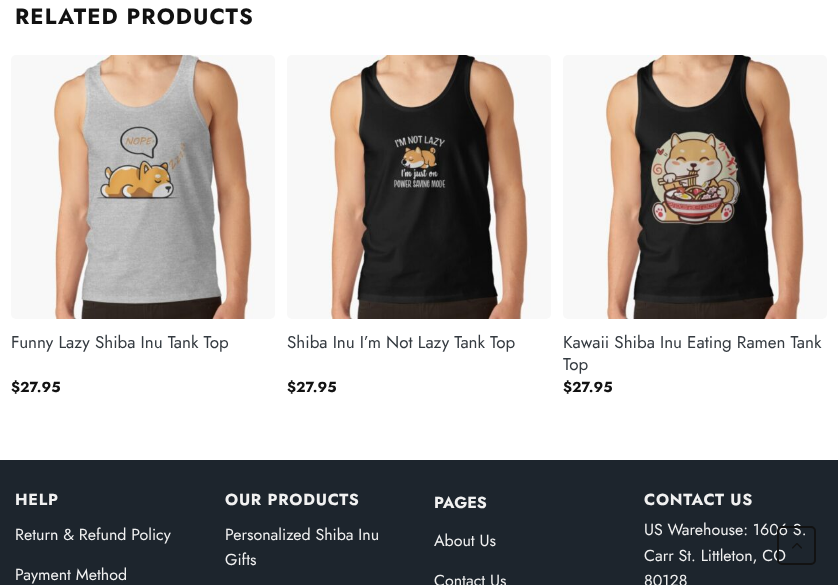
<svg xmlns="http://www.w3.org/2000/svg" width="838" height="585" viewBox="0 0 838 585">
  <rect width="100%" height="100%" fill="#fff"/>
  <image x="11" y="55" width="264" height="264" href="img/1.png"/>
  <image x="287" y="55" width="264" height="264" href="img/2.png"/>
  <image x="563" y="55" width="264" height="264" href="img/3.png"/>
  <path d="M0 460h838v125H0z" fill="#1d252d"/>
  <text x="15" y="24" font-family="Jost" font-size="22" font-weight="bold" letter-spacing="1.1" fill="#121212">RELATED PRODUCTS</text>
  <text x="11" y="348" font-family="Jost" font-size="17" fill="#343a40">Funny Lazy Shiba Inu Tank Top</text>
  <text x="11" y="392" font-family="Jost" font-size="14.5" font-weight="bold" fill="#121212">$27.95</text>
  <text x="287" y="348" font-family="Jost" font-size="17" fill="#343a40">Shiba Inu I’m Not Lazy Tank Top</text>
  <text x="287" y="392" font-family="Jost" font-size="14.5" font-weight="bold" fill="#121212">$27.95</text>
  <g font-family="Jost" font-size="17" fill="#343a40">
    <text x="563" y="348">Kawaii Shiba Inu Eating Ramen Tank</text>
    <text x="563" y="370">Top</text>
  </g>
  <text x="563" y="392" font-family="Jost" font-size="14.5" font-weight="bold" fill="#121212">$27.95</text>
  <text x="15" y="505" font-family="Jost" font-size="16" font-weight="bold" letter-spacing="0.75" fill="#f1f1f1">HELP</text>
  <g font-family="Jost" font-size="16" fill="#f1f1f1">
    <text x="15" y="540">Return &amp; Refund Policy</text>
    <text x="15" y="580">Payment Method</text>
  </g>
  <text x="225" y="505" font-family="Jost" font-size="16" font-weight="bold" letter-spacing="0.75" fill="#f1f1f1">OUR PRODUCTS</text>
  <g font-family="Jost" font-size="16" fill="#f1f1f1">
    <text x="225" y="540">Personalized Shiba Inu</text>
    <text x="225" y="565">Gifts</text>
  </g>
  <text x="434" y="508" font-family="Jost" font-size="16" font-weight="bold" fill="#f1f1f1">PAGES</text>
  <g font-family="Jost" font-size="16" fill="#f1f1f1">
    <text x="434" y="546">About Us</text>
    <text x="434" y="586">Contact Us</text>
  </g>
  <text x="644" y="505" font-family="Jost" font-size="16" font-weight="bold" letter-spacing="0.75" fill="#f1f1f1">CONTACT US</text>
  <g font-family="Jost" font-size="16" fill="#f1f1f1">
    <text x="644" y="535">US Warehouse: 1606 S.</text>
    <text x="644" y="561">Carr St. Littleton, CO</text>
    <text x="644" y="586">80128</text>
  </g>
  <rect x="778" y="527" width="37" height="37" rx="4" fill="none" stroke="#121212" stroke-width="2"/>
  <image x="792" y="543" width="10" height="6" href="img/4.png"/>
</svg>
